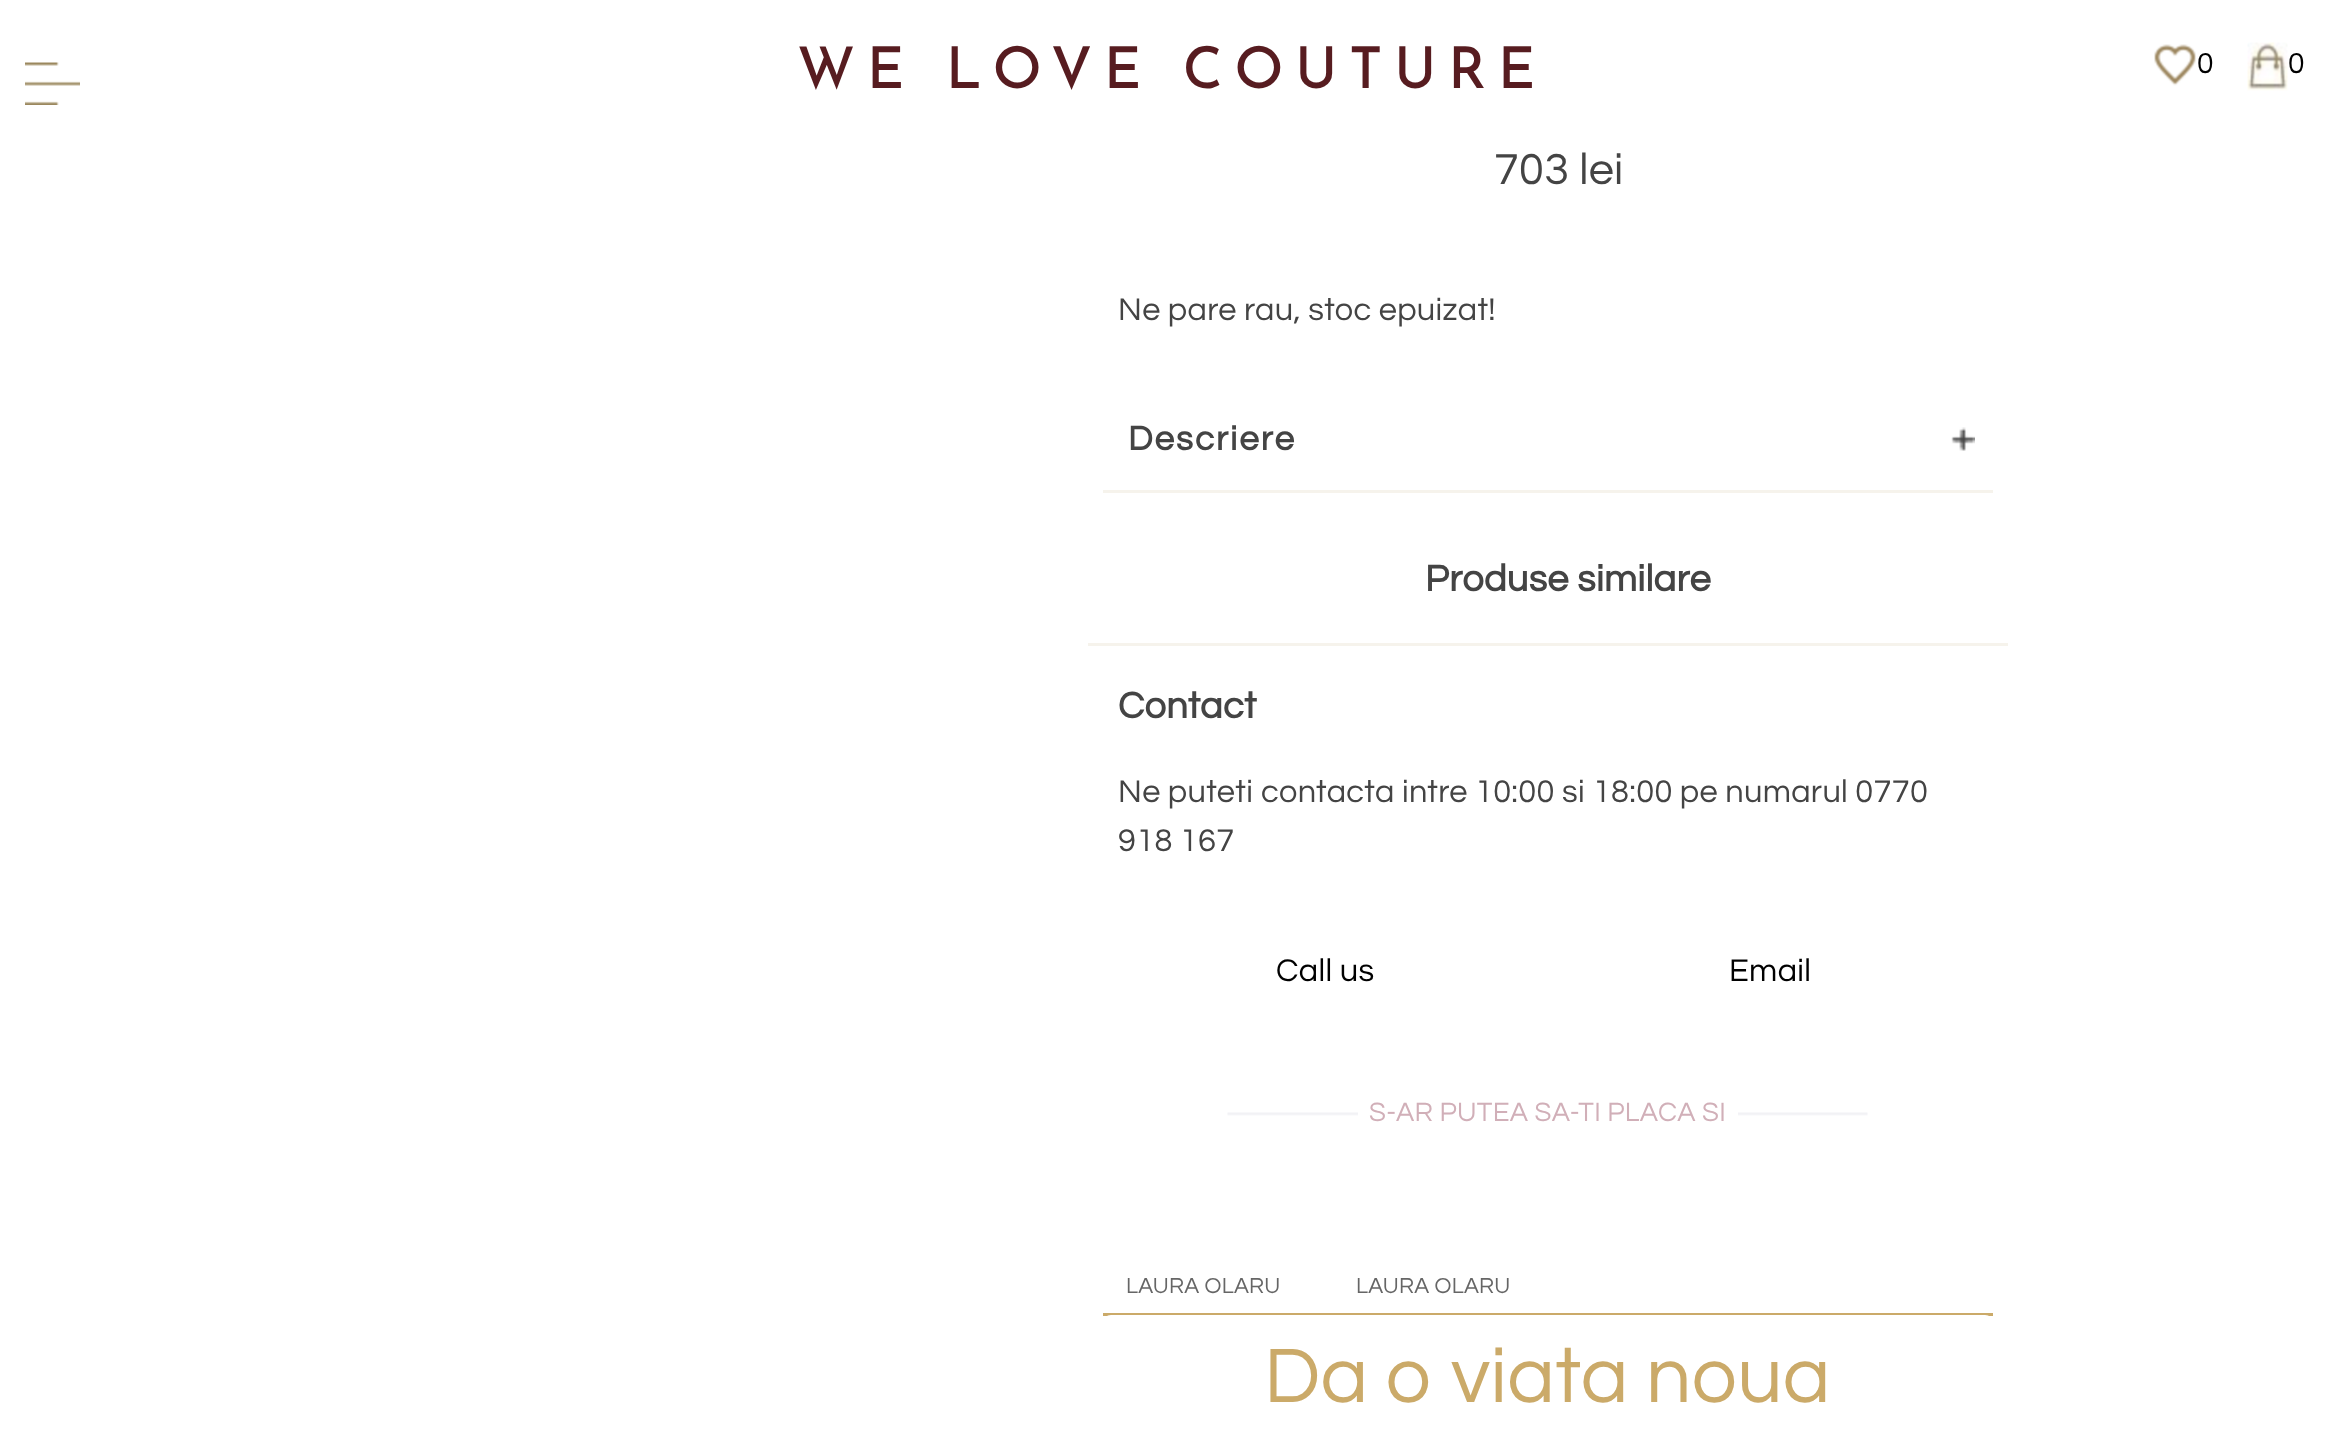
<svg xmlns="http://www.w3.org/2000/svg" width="2345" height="1432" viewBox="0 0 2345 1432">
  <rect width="100%" height="100%" fill="#fff"/>
  <image x="25" y="62" width="55" height="43" href="img/1.png"/>
  <image x="2154" y="44" width="42" height="42" href="img/2.png"/>
  <image x="2247" y="42" width="41" height="49" href="img/3.png"/>
  <path d="M1103 490h890v3H1103z" fill="#f6f3ec"/>
  <image x="1951" y="427" width="24" height="24" href="img/4.png"/>
  <path d="M1088 643h920v3H1088z" fill="#f6f3ec"/>
  <image x="1227" y="1112" width="641" height="4" href="img/5.png"/>
  <path d="M1358 1112h380v4H1358z" fill="#fff"/>
  <path d="M1103 1313h890v3H1103z" fill="#cbaa69"/>
  <rect x="1103" y="1315" width="890" height="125" rx="8" fill="#fff"/>
  <text x="797" y="88" font-family="Josefin Sans" font-size="57.6" font-weight="500" letter-spacing="11.5" fill="#571c20">WE LOVE COUTURE</text>
  <g font-family="Questrial" font-size="30" letter-spacing="0.33" fill="#000">
    <text x="2197" y="73">0</text>
    <text x="2288" y="73">0</text>
  </g>
  <text x="1494" y="184" font-family="Questrial" font-size="45" letter-spacing="0.33" fill="#444">703 lei</text>
  <text x="1118" y="320" font-family="Questrial" font-size="32.5" letter-spacing="0.33" fill="#444">Ne pare rau, stoc epuizat!</text>
  <text x="1128" y="450" font-family="Questrial" font-size="35" font-weight="bold" letter-spacing="2" fill="#444">Descriere</text>
  <g font-family="Questrial" font-size="38" font-weight="bold" letter-spacing="0.33" fill="#444">
    <text x="1425" y="591">Produse similare</text>
    <text x="1118" y="718">Contact</text>
  </g>
  <g font-family="Questrial" font-size="32.5" letter-spacing="0.33" fill="#444">
    <text x="1118" y="802">Ne puteti contacta intre 10:00 si 18:00 pe numarul 0770</text>
    <text x="1118" y="851">918 167</text>
  </g>
  <g font-family="Questrial" font-size="32.5" letter-spacing="0.33" fill="#000">
    <text x="1276" y="981">Call us</text>
    <text x="1729" y="981">Email</text>
  </g>
  <text x="1369" y="1121" font-family="Questrial" font-size="27.5" letter-spacing="0.33" fill="#d1afb8">S-AR PUTEA SA-TI PLACA SI</text>
  <g font-family="Questrial" font-size="22.5" letter-spacing="0.25" fill="#666">
    <text x="1126" y="1293">LAURA OLARU</text>
    <text x="1356" y="1293">LAURA OLARU</text>
  </g>
  <text x="1264" y="1402" font-family="Questrial" font-size="80" letter-spacing="0.33" fill="#cbaa69">Da o viata noua</text>
</svg>
